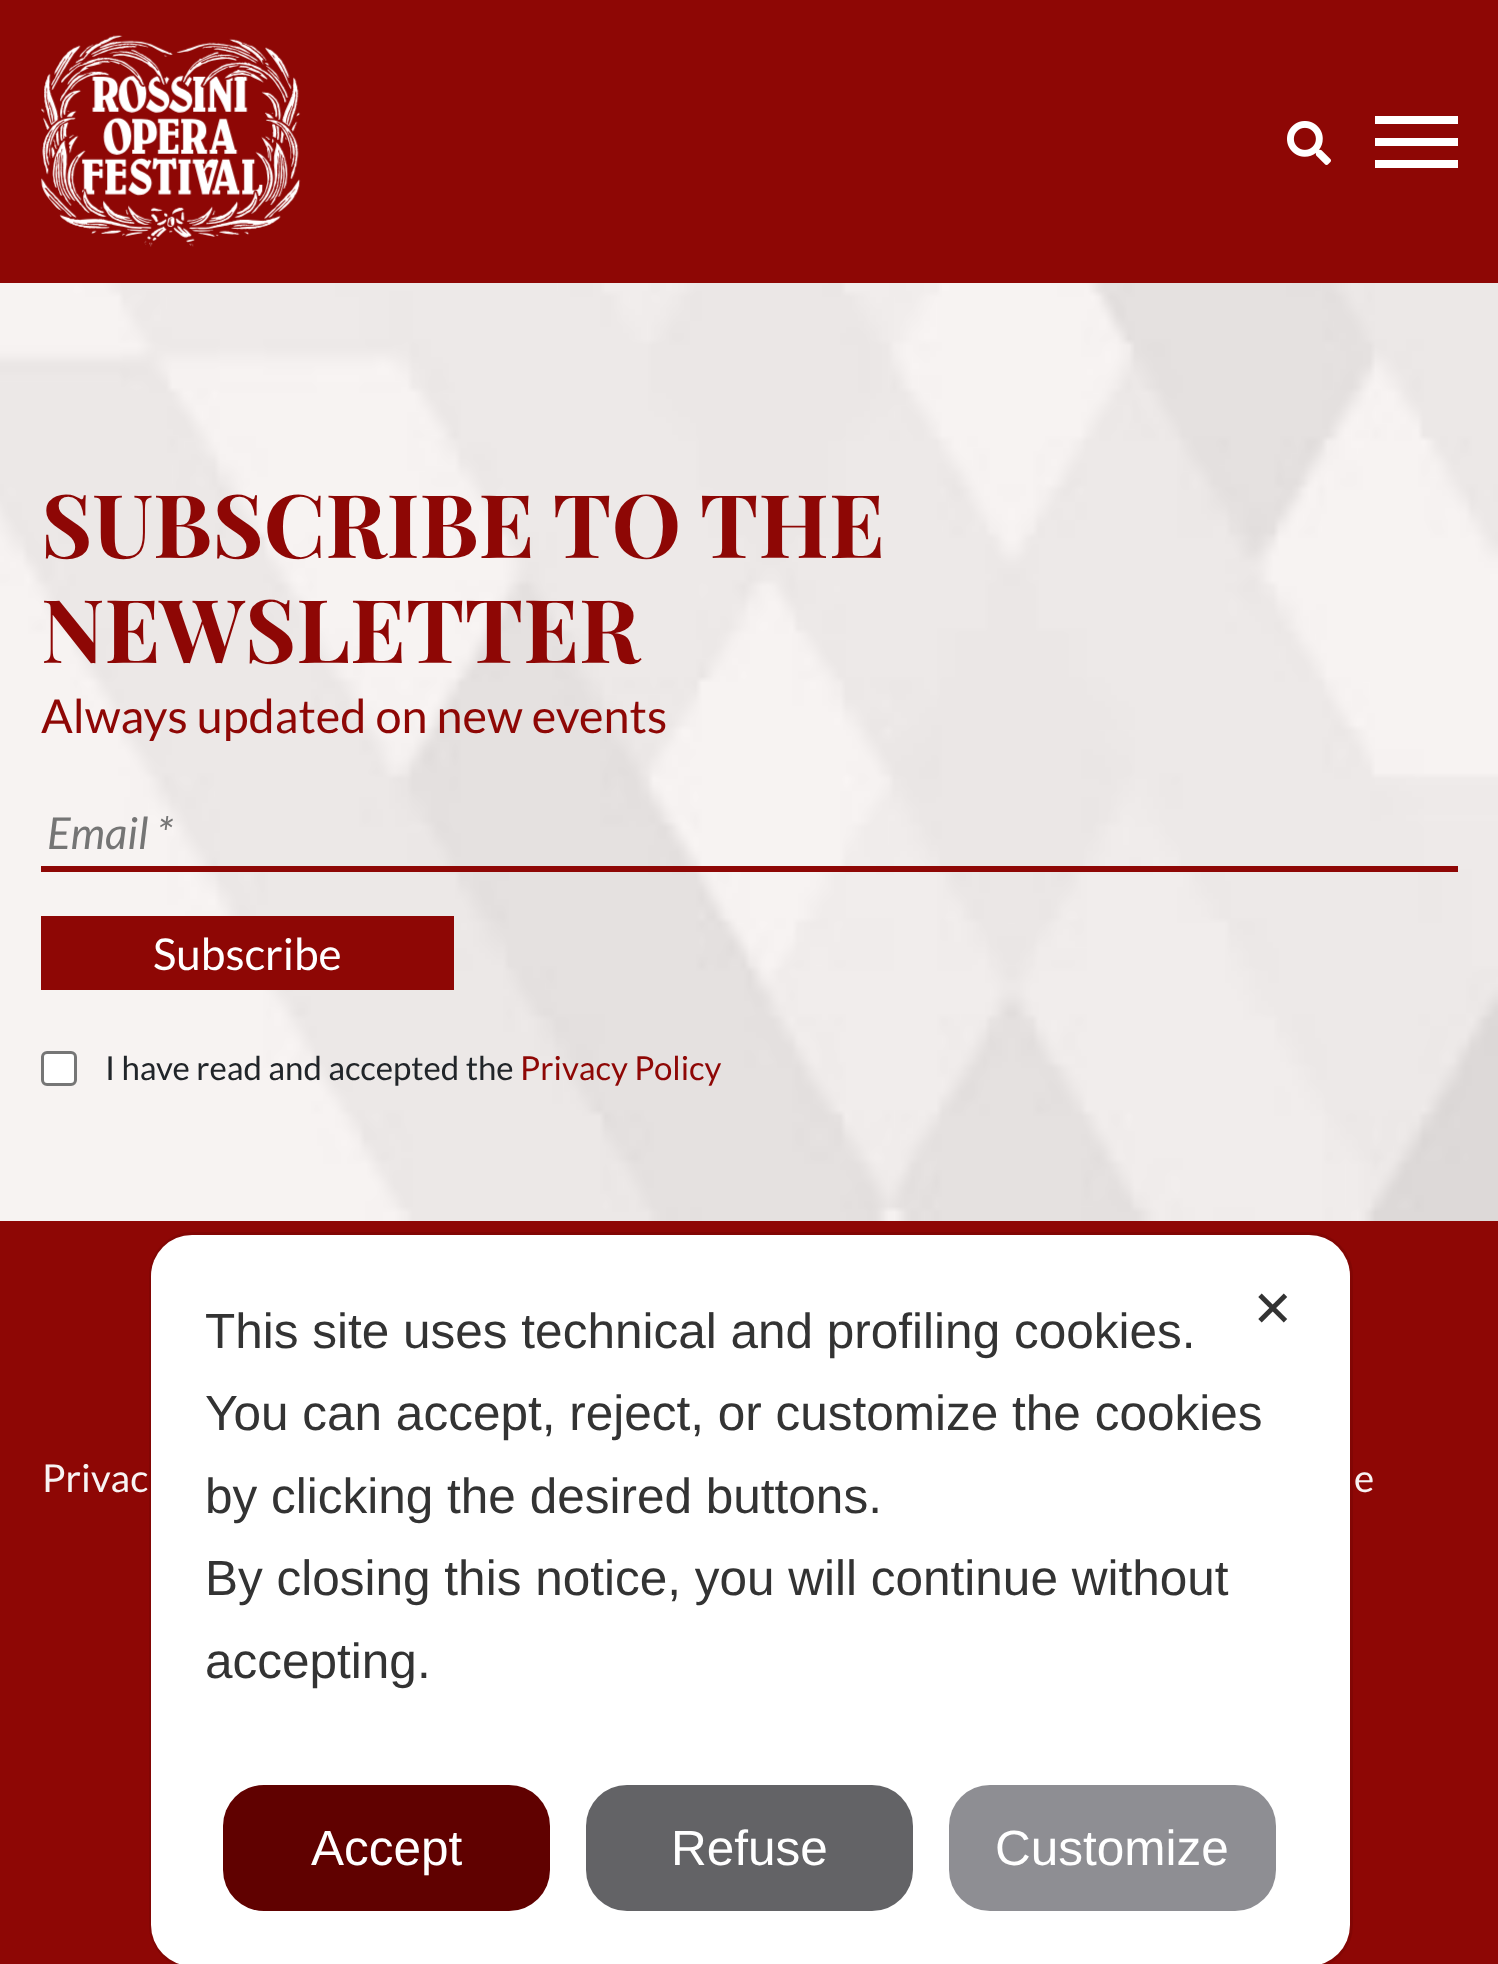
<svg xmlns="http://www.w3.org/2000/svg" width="1498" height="1964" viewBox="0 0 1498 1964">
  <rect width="100%" height="100%" fill="#fff"/>
  <path d="M0 0h1498v283H0z" fill="#8e0705"/>
  <image x="41" y="35" width="260" height="212" href="img/1.png"/>
  <image x="1287" y="121" width="44" height="44" href="img/2.png"/>
  <path d="M1375 116h83v8H1375z" fill="#fff"/>
  <path d="M1375 138h83v8H1375z" fill="#fff"/>
  <path d="M1375 160h83v8H1375z" fill="#fff"/>
  <image x="0" y="283" width="1498" height="938" href="img/3.png"/>
  <path d="M41 866h1417v6H41z" fill="#8e0705"/>
  <path d="M41 916h413v74H41z" fill="#8e0705"/>
  <rect x="42.5" y="1052.5" width="33" height="32" rx="4.5" fill="#fff" stroke="#767676" stroke-width="3"/>
  <path d="M0 1221h1498v743H0z" fill="#8e0705"/>
  <rect x="150.5" y="1233.5" width="1201" height="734" rx="42.5" fill="none" stroke="#00000014" stroke-width="3"/>
  <rect x="151" y="1235" width="1199" height="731" rx="41" fill="#fff"/>
  <rect x="223" y="1785" width="327" height="126" rx="41" fill="#600100"/>
  <rect x="586" y="1785" width="327" height="126" rx="41" fill="#636366"/>
  <rect x="949" y="1785" width="327" height="126" rx="41" fill="#8e8e93"/>
  <g font-family="Playfair Display" font-size="88" font-weight="bold" fill="#8e0705">
    <text x="41" y="558">SUBSCRIBE TO THE</text>
    <text x="41" y="663">NEWSLETTER</text>
  </g>
  <text x="41" y="733" font-family="Lato" font-size="46.75" fill="#8e0705">Always updated on new events</text>
  <text x="47" y="849" font-family="Lato" font-size="44" font-style="italic" fill="#757575">Email *</text>
  <text x="153" y="970" font-family="Lato" font-size="44" fill="#fff">Subscribe</text>
  <text x="105" y="1080" font-family="Lato" font-size="33" fill="#212529">I have read and accepted the</text>
  <text x="520" y="1080" font-family="Lato" font-size="33" fill="#8e0705">Privacy Policy</text>
  <g font-family="Lato" font-size="38.5" fill="#f8f3f3">
    <text x="42" y="1492">Privac</text>
    <text x="1354" y="1492">e</text>
  </g>
  <text x="1252" y="1326" font-family="DejaVu Sans" font-size="49.5" fill="#333">✕</text>
  <g font-family="Liberation Sans" font-size="49.5" fill="#333">
    <text x="205" y="1348">This site uses technical and profiling cookies.</text>
    <text x="205" y="1430">You can accept, reject, or customize the cookies</text>
    <text x="205" y="1513">by clicking the desired buttons.</text>
    <text x="205" y="1595">By closing this notice, you will continue without</text>
    <text x="205" y="1678">accepting.</text>
  </g>
  <g font-family="Liberation Sans" font-size="49.5" fill="#fff">
    <text x="311" y="1865">Accept</text>
    <text x="671" y="1865">Refuse</text>
    <text x="995" y="1865">Customize</text>
  </g>
</svg>
